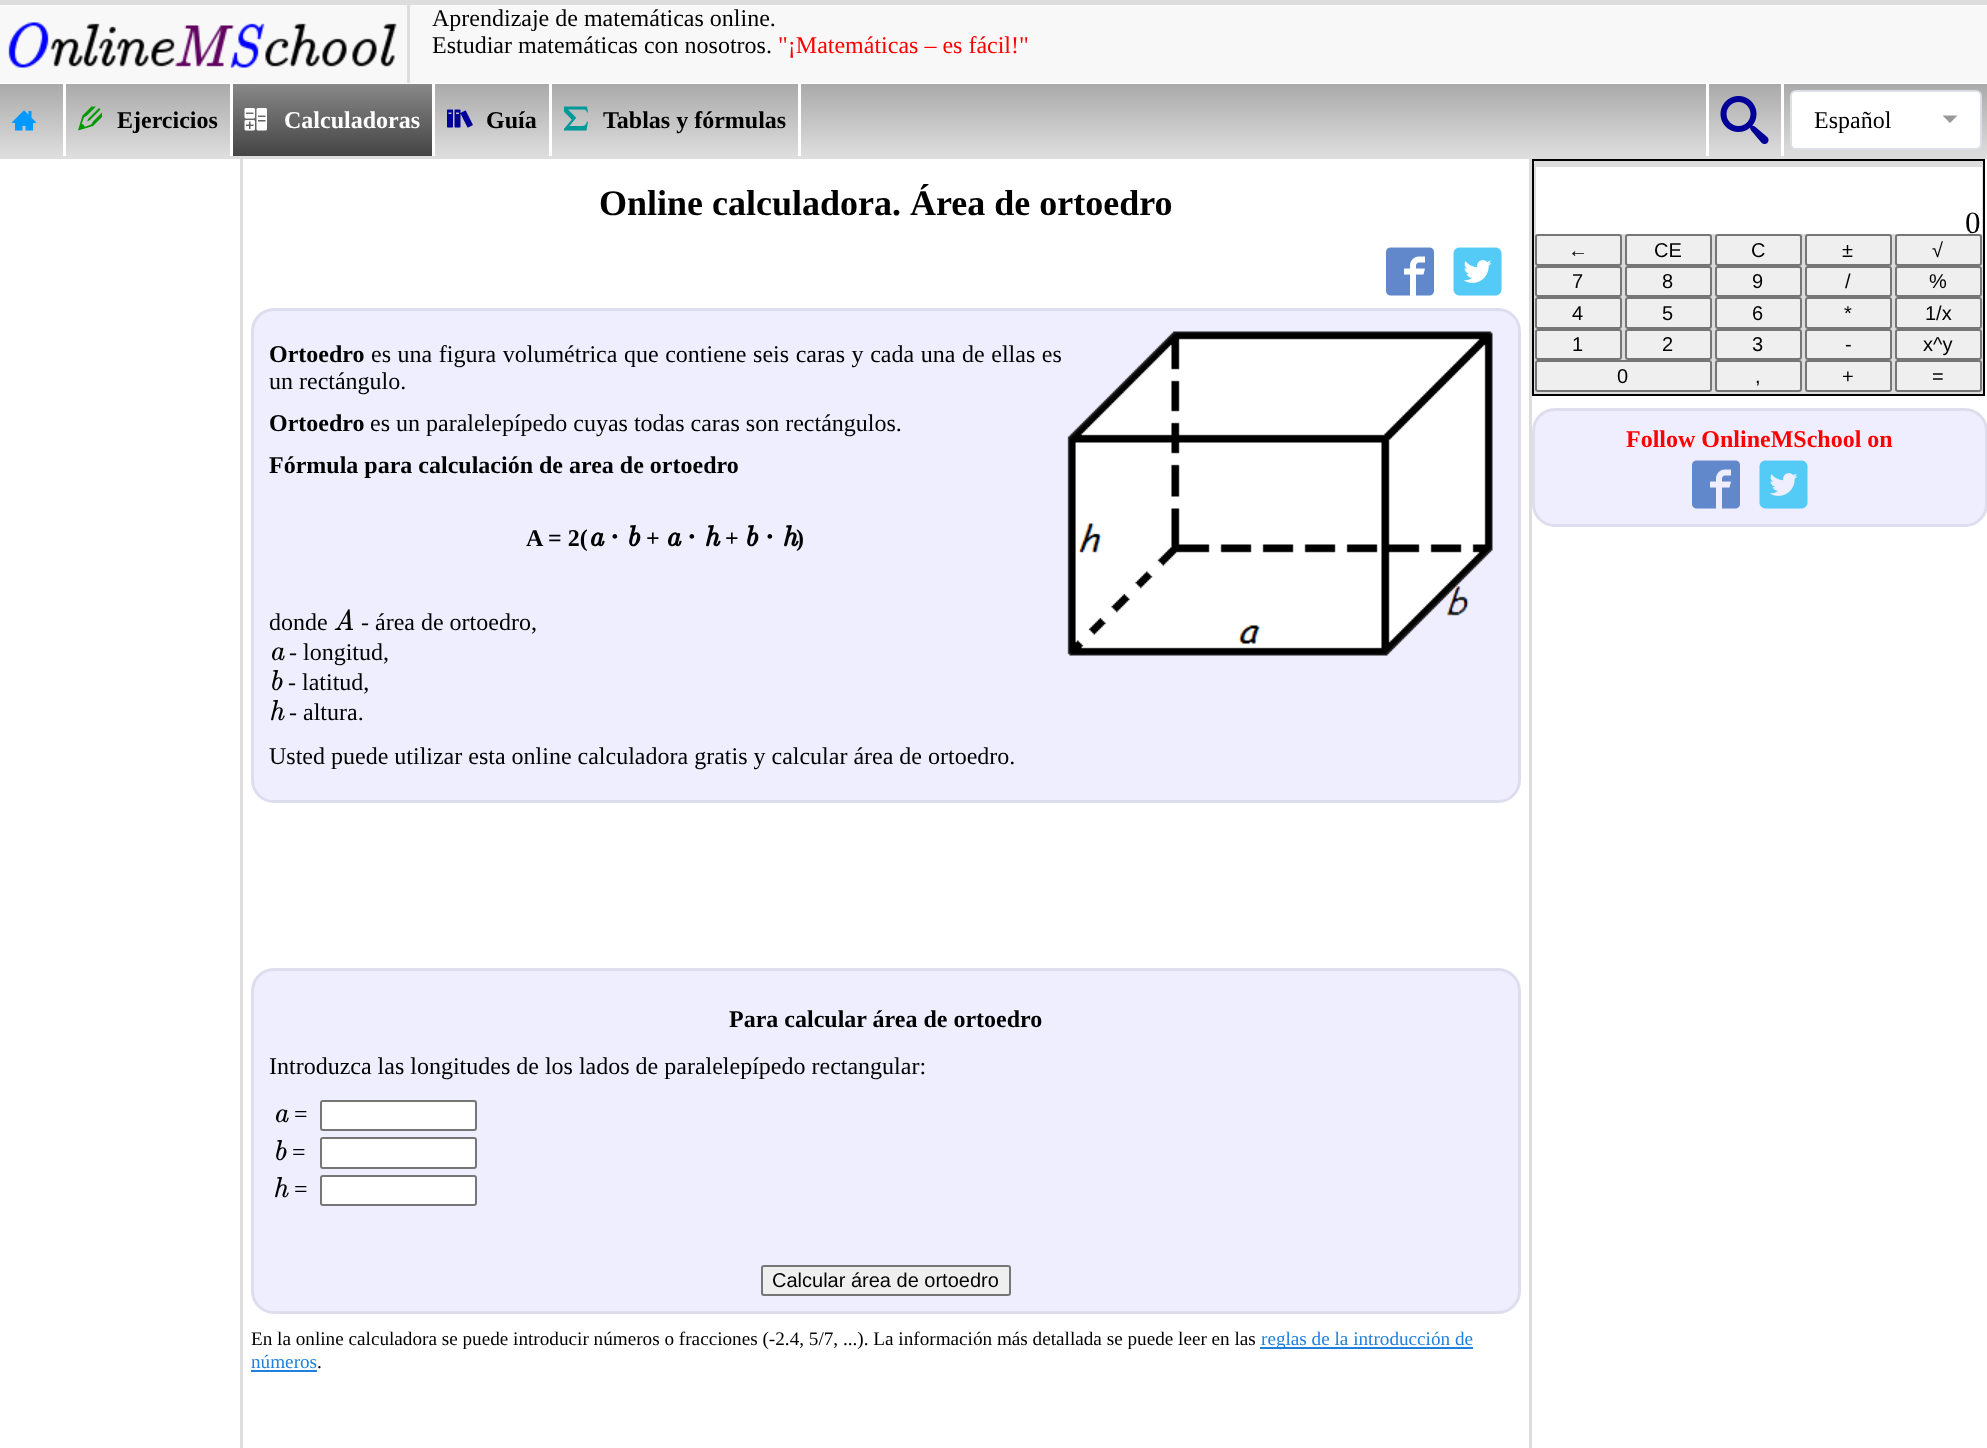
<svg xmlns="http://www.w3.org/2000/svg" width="1987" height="1448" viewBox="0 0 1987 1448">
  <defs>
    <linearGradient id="g1" gradientUnits="userSpaceOnUse" x1="0" y1="156" x2="0" y2="84"><stop offset="0" stop-color="#ddd"/><stop offset="1" stop-color="#aaa"/></linearGradient>
    <linearGradient id="g2" gradientUnits="userSpaceOnUse" x1="233" y1="156" x2="233" y2="84"><stop offset="0" stop-color="#444"/><stop offset="1" stop-color="#888"/></linearGradient>
  </defs>
  <rect width="100%" height="100%" fill="#f8f8f8"/>
  <path d="M0 0h1987v5H0z" fill="#ddd"/>
  <path d="M0 83h1987v1H0z" fill="#fff"/>
  <path d="M407 5h3v78H407z" fill="#ddd"/>
  <image x="8" y="22" width="389" height="46" href="img/1.png"/>
  <path d="M0 84h1987v72H0z" fill="url(#g1)"/>
  <path d="M63 84h3v72H63z" fill="#fff"/>
  <image x="12" y="110" width="24" height="21" href="img/2.png"/>
  <path d="M230 84h3v72H230z" fill="#fff"/>
  <image x="78" y="106" width="24" height="25" href="img/3.png"/>
  <path d="M233 84h199v72H233z" fill="url(#g2)"/>
  <path d="M432 84h3v72H432z" fill="#fff"/>
  <image x="244" y="108" width="23" height="23" href="img/4.png"/>
  <path d="M549 84h3v72H549z" fill="#fff"/>
  <image x="447" y="109" width="26" height="19" href="img/5.png"/>
  <path d="M798 84h3v72H798z" fill="#fff"/>
  <image x="564" y="106" width="24" height="25" href="img/6.png"/>
  <path d="M1781 84h3v72H1781z" fill="#fff"/>
  <path d="M1706 84h3v72H1706z" fill="#fff"/>
  <image x="1720" y="96" width="49" height="48" href="img/7.png"/>
  <rect x="1791" y="91" width="190" height="58" rx="5" fill="#fff" stroke="#dcdfe6" stroke-width="2"/>
  <path d="M1942.5 115.5H1957.5L1950 123Z" fill="#999"/>
  <path d="M0 159h240v1289H0z" fill="#fff"/>
  <path d="M0 156h1987v3H0z" fill="#ddd"/>
  <path d="M240 156h3v1292H240z" fill="#ddd"/>
  <path d="M243 159h1286v1289H243z" fill="#fff"/>
  <path d="M1529 156h3v1292H1529z" fill="#ddd"/>
  <image x="1386" y="247" width="48" height="49" href="img/8.png"/>
  <image x="1453" y="247" width="49" height="49" href="img/9.png"/>
  <rect x="252.5" y="309.5" width="1267" height="492" rx="21.5" fill="#eef" stroke="#dde" stroke-width="3"/>
  <image x="1067" y="331" width="426" height="325" href="img/10.png"/>
  <rect x="252.5" y="969.5" width="1267" height="343" rx="21.5" fill="#eef" stroke="#dde" stroke-width="3"/>
  <rect x="321" y="1101" width="155" height="29" rx="2" fill="#fff" stroke="#767676" stroke-width="2"/>
  <rect x="321" y="1138" width="155" height="30" rx="2" fill="#fff" stroke="#767676" stroke-width="2"/>
  <rect x="321" y="1176" width="155" height="29" rx="2" fill="#fff" stroke="#767676" stroke-width="2"/>
  <rect x="762" y="1266" width="248" height="29" rx="2" fill="#efefef" stroke="#767676" stroke-width="2"/>
  <path d="M1260 1347h213v2H1260z" fill="#2080dd"/>
  <path d="M251 1370h66v2H251z" fill="#2080dd"/>
  <path d="M1532 159h455v1289H1532z" fill="#fff"/>
  <path d="M1533 160h451v235H1533z" fill="#ddd" stroke="#000" stroke-width="2"/>
  <path d="M1536 167h446v67H1536z" fill="#fff"/>
  <rect x="1536" y="235" width="85" height="30" rx="2" fill="#efefef" stroke="#767676" stroke-width="2"/>
  <rect x="1626" y="235" width="85" height="30" rx="2" fill="#efefef" stroke="#767676" stroke-width="2"/>
  <rect x="1716" y="235" width="85" height="30" rx="2" fill="#efefef" stroke="#767676" stroke-width="2"/>
  <rect x="1806" y="235" width="85" height="30" rx="2" fill="#efefef" stroke="#767676" stroke-width="2"/>
  <rect x="1896" y="235" width="85" height="30" rx="2" fill="#efefef" stroke="#767676" stroke-width="2"/>
  <rect x="1536" y="267" width="85" height="29" rx="2" fill="#efefef" stroke="#767676" stroke-width="2"/>
  <rect x="1626" y="267" width="85" height="29" rx="2" fill="#efefef" stroke="#767676" stroke-width="2"/>
  <rect x="1716" y="267" width="85" height="29" rx="2" fill="#efefef" stroke="#767676" stroke-width="2"/>
  <rect x="1806" y="267" width="85" height="29" rx="2" fill="#efefef" stroke="#767676" stroke-width="2"/>
  <rect x="1896" y="267" width="85" height="29" rx="2" fill="#efefef" stroke="#767676" stroke-width="2"/>
  <rect x="1536" y="298" width="85" height="30" rx="2" fill="#efefef" stroke="#767676" stroke-width="2"/>
  <rect x="1626" y="298" width="85" height="30" rx="2" fill="#efefef" stroke="#767676" stroke-width="2"/>
  <rect x="1716" y="298" width="85" height="30" rx="2" fill="#efefef" stroke="#767676" stroke-width="2"/>
  <rect x="1806" y="298" width="85" height="30" rx="2" fill="#efefef" stroke="#767676" stroke-width="2"/>
  <rect x="1896" y="298" width="85" height="30" rx="2" fill="#efefef" stroke="#767676" stroke-width="2"/>
  <rect x="1536" y="330" width="85" height="29" rx="2" fill="#efefef" stroke="#767676" stroke-width="2"/>
  <rect x="1626" y="330" width="85" height="29" rx="2" fill="#efefef" stroke="#767676" stroke-width="2"/>
  <rect x="1716" y="330" width="85" height="29" rx="2" fill="#efefef" stroke="#767676" stroke-width="2"/>
  <rect x="1806" y="330" width="85" height="29" rx="2" fill="#efefef" stroke="#767676" stroke-width="2"/>
  <rect x="1896" y="330" width="85" height="29" rx="2" fill="#efefef" stroke="#767676" stroke-width="2"/>
  <rect x="1536" y="361" width="175" height="30" rx="2" fill="#efefef" stroke="#767676" stroke-width="2"/>
  <rect x="1806" y="361" width="85" height="30" rx="2" fill="#efefef" stroke="#767676" stroke-width="2"/>
  <rect x="1896" y="361" width="85" height="30" rx="2" fill="#efefef" stroke="#767676" stroke-width="2"/>
  <rect x="1716" y="361" width="85" height="30" rx="2" fill="#efefef" stroke="#767676" stroke-width="2"/>
  <rect x="1533.5" y="409.5" width="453" height="116" rx="21.5" fill="#eef" stroke="#dde" stroke-width="3"/>
  <image x="1692" y="460" width="48" height="49" href="img/11.png"/>
  <image x="1759" y="460" width="49" height="49" href="img/12.png"/>
  <g font-family="Liberation Serif" font-size="24" fill="#000">
    <text x="432" y="26">Aprendizaje de matemáticas online.</text>
    <text x="432" y="53">Estudiar matemáticas con nosotros.</text>
  </g>
  <text x="778" y="53" font-family="Liberation Serif" font-size="24" fill="#f00">"¡Matemáticas – es fácil!"</text>
  <text x="117" y="128" font-family="Liberation Serif" font-size="24" font-weight="bold" fill="#000">Ejercicios</text>
  <text x="284" y="128" font-family="Liberation Serif" font-size="24" font-weight="bold" fill="#fff">Calculadoras</text>
  <g font-family="Liberation Serif" font-size="24" font-weight="bold" fill="#000">
    <text x="486" y="128">Guía</text>
    <text x="603" y="128">Tablas y fórmulas</text>
  </g>
  <text x="1814" y="128" font-family="Liberation Serif" font-size="24" fill="#000">Español</text>
  <text x="599" y="215" font-family="Liberation Serif" font-size="36" font-weight="bold" fill="#000">Online calculadora. Área de ortoedro</text>
  <text x="269" y="362" font-family="Liberation Serif" font-size="24" font-weight="bold" fill="#000">Ortoedro</text>
  <g font-family="Liberation Serif" font-size="24" fill="#000">
    <text x="371" y="362" word-spacing="0.6">es una figura volumétrica que contiene seis caras y cada una de ellas es</text>
    <text x="269" y="389">un rectángulo.</text>
  </g>
  <text x="269" y="431" font-family="Liberation Serif" font-size="24" font-weight="bold" fill="#000">Ortoedro</text>
  <text x="370" y="431" font-family="Liberation Serif" font-size="24" fill="#000">es un paralelepípedo cuyas todas caras son rectángulos.</text>
  <g font-family="Liberation Serif" font-size="24" font-weight="bold" fill="#000">
    <text x="269" y="473">Fórmula para calculación de area de ortoedro</text>
    <text x="526" y="546">A = 2(</text>
  </g>
  <text x="588" y="546" font-family="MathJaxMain" font-size="29" font-weight="bold" font-style="italic" fill="#000">a</text>
  <text x="610" y="546" font-family="Liberation Serif" font-size="29" font-weight="bold" fill="#000">·</text>
  <text x="626" y="546" font-family="MathJaxMain" font-size="29" font-weight="bold" font-style="italic" fill="#000">b</text>
  <text x="646" y="546" font-family="Liberation Serif" font-size="24" font-weight="bold" fill="#000">+</text>
  <text x="665" y="546" font-family="MathJaxMain" font-size="29" font-weight="bold" font-style="italic" fill="#000">a</text>
  <text x="687" y="546" font-family="Liberation Serif" font-size="29" font-weight="bold" fill="#000">·</text>
  <text x="704" y="546" font-family="MathJaxMain" font-size="29" font-weight="bold" font-style="italic" fill="#000">h</text>
  <text x="725" y="546" font-family="Liberation Serif" font-size="24" font-weight="bold" fill="#000">+</text>
  <text x="744" y="546" font-family="MathJaxMain" font-size="29" font-weight="bold" font-style="italic" fill="#000">b</text>
  <text x="765" y="546" font-family="Liberation Serif" font-size="29" font-weight="bold" fill="#000">·</text>
  <text x="782" y="546" font-family="MathJaxMain" font-size="29" font-weight="bold" font-style="italic" fill="#000">h</text>
  <text x="796" y="546" font-family="Liberation Serif" font-size="24" font-weight="bold" fill="#000">)</text>
  <text x="269" y="630" font-family="Liberation Serif" font-size="24" fill="#000">donde</text>
  <text x="333" y="630" font-family="MathJaxMain" font-size="29" font-style="italic" fill="#000">A</text>
  <text x="361" y="630" font-family="Liberation Serif" font-size="24" fill="#000">- área de ortoedro,</text>
  <text x="269" y="660" font-family="MathJaxMain" font-size="29" font-style="italic" fill="#000">a</text>
  <text x="289" y="660" font-family="Liberation Serif" font-size="24" fill="#000">- longitud,</text>
  <text x="269" y="690" font-family="MathJaxMain" font-size="29" font-style="italic" fill="#000">b</text>
  <text x="288" y="690" font-family="Liberation Serif" font-size="24" fill="#000">- latitud,</text>
  <text x="269" y="720" font-family="MathJaxMain" font-size="29" font-style="italic" fill="#000">h</text>
  <g font-family="Liberation Serif" font-size="24" fill="#000">
    <text x="289" y="720">- altura.</text>
    <text x="269" y="764">Usted puede utilizar esta online calculadora gratis y calcular área de ortoedro.</text>
  </g>
  <text x="729" y="1027" font-family="Liberation Serif" font-size="24" font-weight="bold" fill="#000">Para calcular área de ortoedro</text>
  <text x="269" y="1074" font-family="Liberation Serif" font-size="24" fill="#000">Introduzca las longitudes de los lados de paralelepípedo rectangular:</text>
  <text x="273" y="1122" font-family="MathJaxMain" font-size="29" font-style="italic" fill="#000">a</text>
  <text x="294" y="1122" font-family="Liberation Serif" font-size="24" fill="#000">=</text>
  <text x="273" y="1160" font-family="MathJaxMain" font-size="29" font-style="italic" fill="#000">b</text>
  <text x="292" y="1160" font-family="Liberation Serif" font-size="24" fill="#000">=</text>
  <text x="273" y="1197" font-family="MathJaxMain" font-size="29" font-style="italic" fill="#000">h</text>
  <text x="294" y="1197" font-family="Liberation Serif" font-size="24" fill="#000">=</text>
  <text x="772" y="1287" font-family="Liberation Sans" font-size="20" fill="#000">Calcular área de ortoedro</text>
  <text x="251" y="1345" font-family="Liberation Serif" font-size="19.2" fill="#000">En la online calculadora se puede introducir números o fracciones (-2.4, 5/7, ...). La información más detallada se puede leer en las</text>
  <g font-family="Liberation Serif" font-size="19.2" fill="#2080dd">
    <text x="1261" y="1345">reglas de la introducción de</text>
    <text x="251" y="1368">números</text>
  </g>
  <text x="317" y="1368" font-family="Liberation Serif" font-size="19.2" fill="#000">.</text>
  <text x="1965" y="233" font-family="Liberation Serif" font-size="31" fill="#000">0</text>
  <g font-family="Liberation Sans" font-size="20" fill="#000">
    <text x="1568" y="257">←</text>
    <text x="1654" y="257">CE</text>
    <text x="1751" y="257">C</text>
    <text x="1842" y="257">±</text>
    <text x="1932" y="257">√</text>
    <text x="1572" y="288">7</text>
    <text x="1662" y="288">8</text>
    <text x="1752" y="288">9</text>
    <text x="1845" y="288">/</text>
    <text x="1929" y="288">%</text>
    <text x="1572" y="320">4</text>
    <text x="1662" y="320">5</text>
    <text x="1752" y="320">6</text>
    <text x="1844" y="320">*</text>
    <text x="1925" y="320">1/x</text>
    <text x="1572" y="351">1</text>
    <text x="1662" y="351">2</text>
    <text x="1752" y="351">3</text>
    <text x="1845" y="351">-</text>
    <text x="1923" y="351">x^y</text>
    <text x="1617" y="383">0</text>
    <text x="1842" y="383">+</text>
    <text x="1932" y="383">=</text>
    <text x="1755" y="383">,</text>
  </g>
  <text x="1626" y="447" font-family="Liberation Serif" font-size="24" font-weight="bold" fill="#f00">Follow OnlineMSchool on</text>
</svg>
